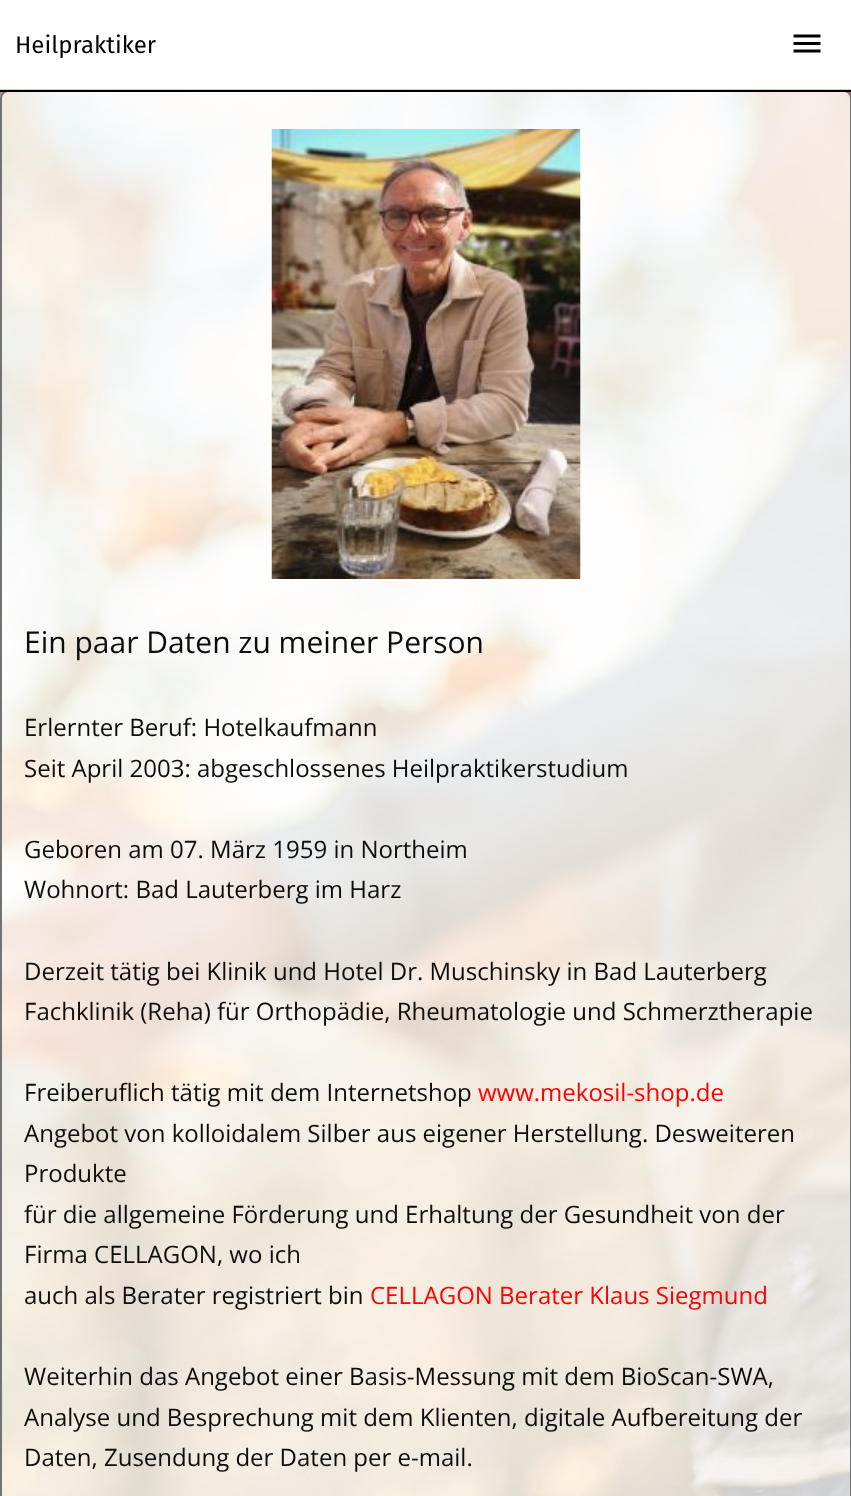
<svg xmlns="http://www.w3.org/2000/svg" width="851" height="1496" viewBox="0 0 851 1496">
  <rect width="100%" height="100%" fill="#fff"/>
  <image x="0" y="92" width="851" height="1404" href="img/1.png"/>
  <path d="M0 89h851v1H0z" fill="#ccc"/>
  <rect x="1" y="91" width="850" height="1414" rx="7" fill="none" stroke="#737373" stroke-width="2"/>
  <path d="M0 90h851v2H0z" fill="#000"/>
  <image x="793" y="34" width="28" height="19" href="img/2.png"/>
  <image x="271" y="129" width="310" height="450" href="img/3.png"/>
  <text x="15" y="53" font-family="Fira Sans" font-size="24" fill="#000">Heilpraktiker</text>
  <text x="24" y="653" font-family="Open Sans" font-size="30" fill="#0d0d0d">Ein paar Daten zu meiner Person</text>
  <g font-family="Open Sans" font-size="24" fill="#0d0d0d">
    <text x="24" y="736">Erlernter Beruf: Hotelkaufmann</text>
    <text x="24" y="777">Seit April 2003: abgeschlossenes Heilpraktikerstudium</text>
    <text x="24" y="858">Geboren am 07. März 1959 in Northeim</text>
    <text x="24" y="898">Wohnort: Bad Lauterberg im Harz</text>
    <text x="24" y="980">Derzeit tätig bei Klinik und Hotel Dr. Muschinsky in Bad Lauterberg</text>
    <text x="24" y="1020">Fachklinik (Reha) für Orthopädie, Rheumatologie und Schmerztherapie</text>
    <text x="24" y="1101">Freiberuflich tätig mit dem Internetshop</text>
  </g>
  <text x="478" y="1101" font-family="Open Sans" font-size="24" fill="#f00">www.mekosil-shop.de</text>
  <g font-family="Open Sans" font-size="24" fill="#0d0d0d">
    <text x="24" y="1142">Angebot von kolloidalem Silber aus eigener Herstellung. Desweiteren</text>
    <text x="24" y="1182">Produkte</text>
    <text x="24" y="1223">für die allgemeine Förderung und Erhaltung der Gesundheit von der</text>
    <text x="24" y="1263">Firma CELLAGON, wo ich</text>
    <text x="24" y="1304">auch als Berater registriert bin</text>
  </g>
  <text x="370" y="1304" font-family="Open Sans" font-size="24" fill="#f00">CELLAGON Berater Klaus Siegmund</text>
  <g font-family="Open Sans" font-size="24" fill="#0d0d0d">
    <text x="24" y="1385">Weiterhin das Angebot einer Basis-Messung mit dem BioScan-SWA,</text>
    <text x="24" y="1426">Analyse und Besprechung mit dem Klienten, digitale Aufbereitung der</text>
    <text x="24" y="1466">Daten, Zusendung der Daten per e-mail.</text>
  </g>
</svg>
